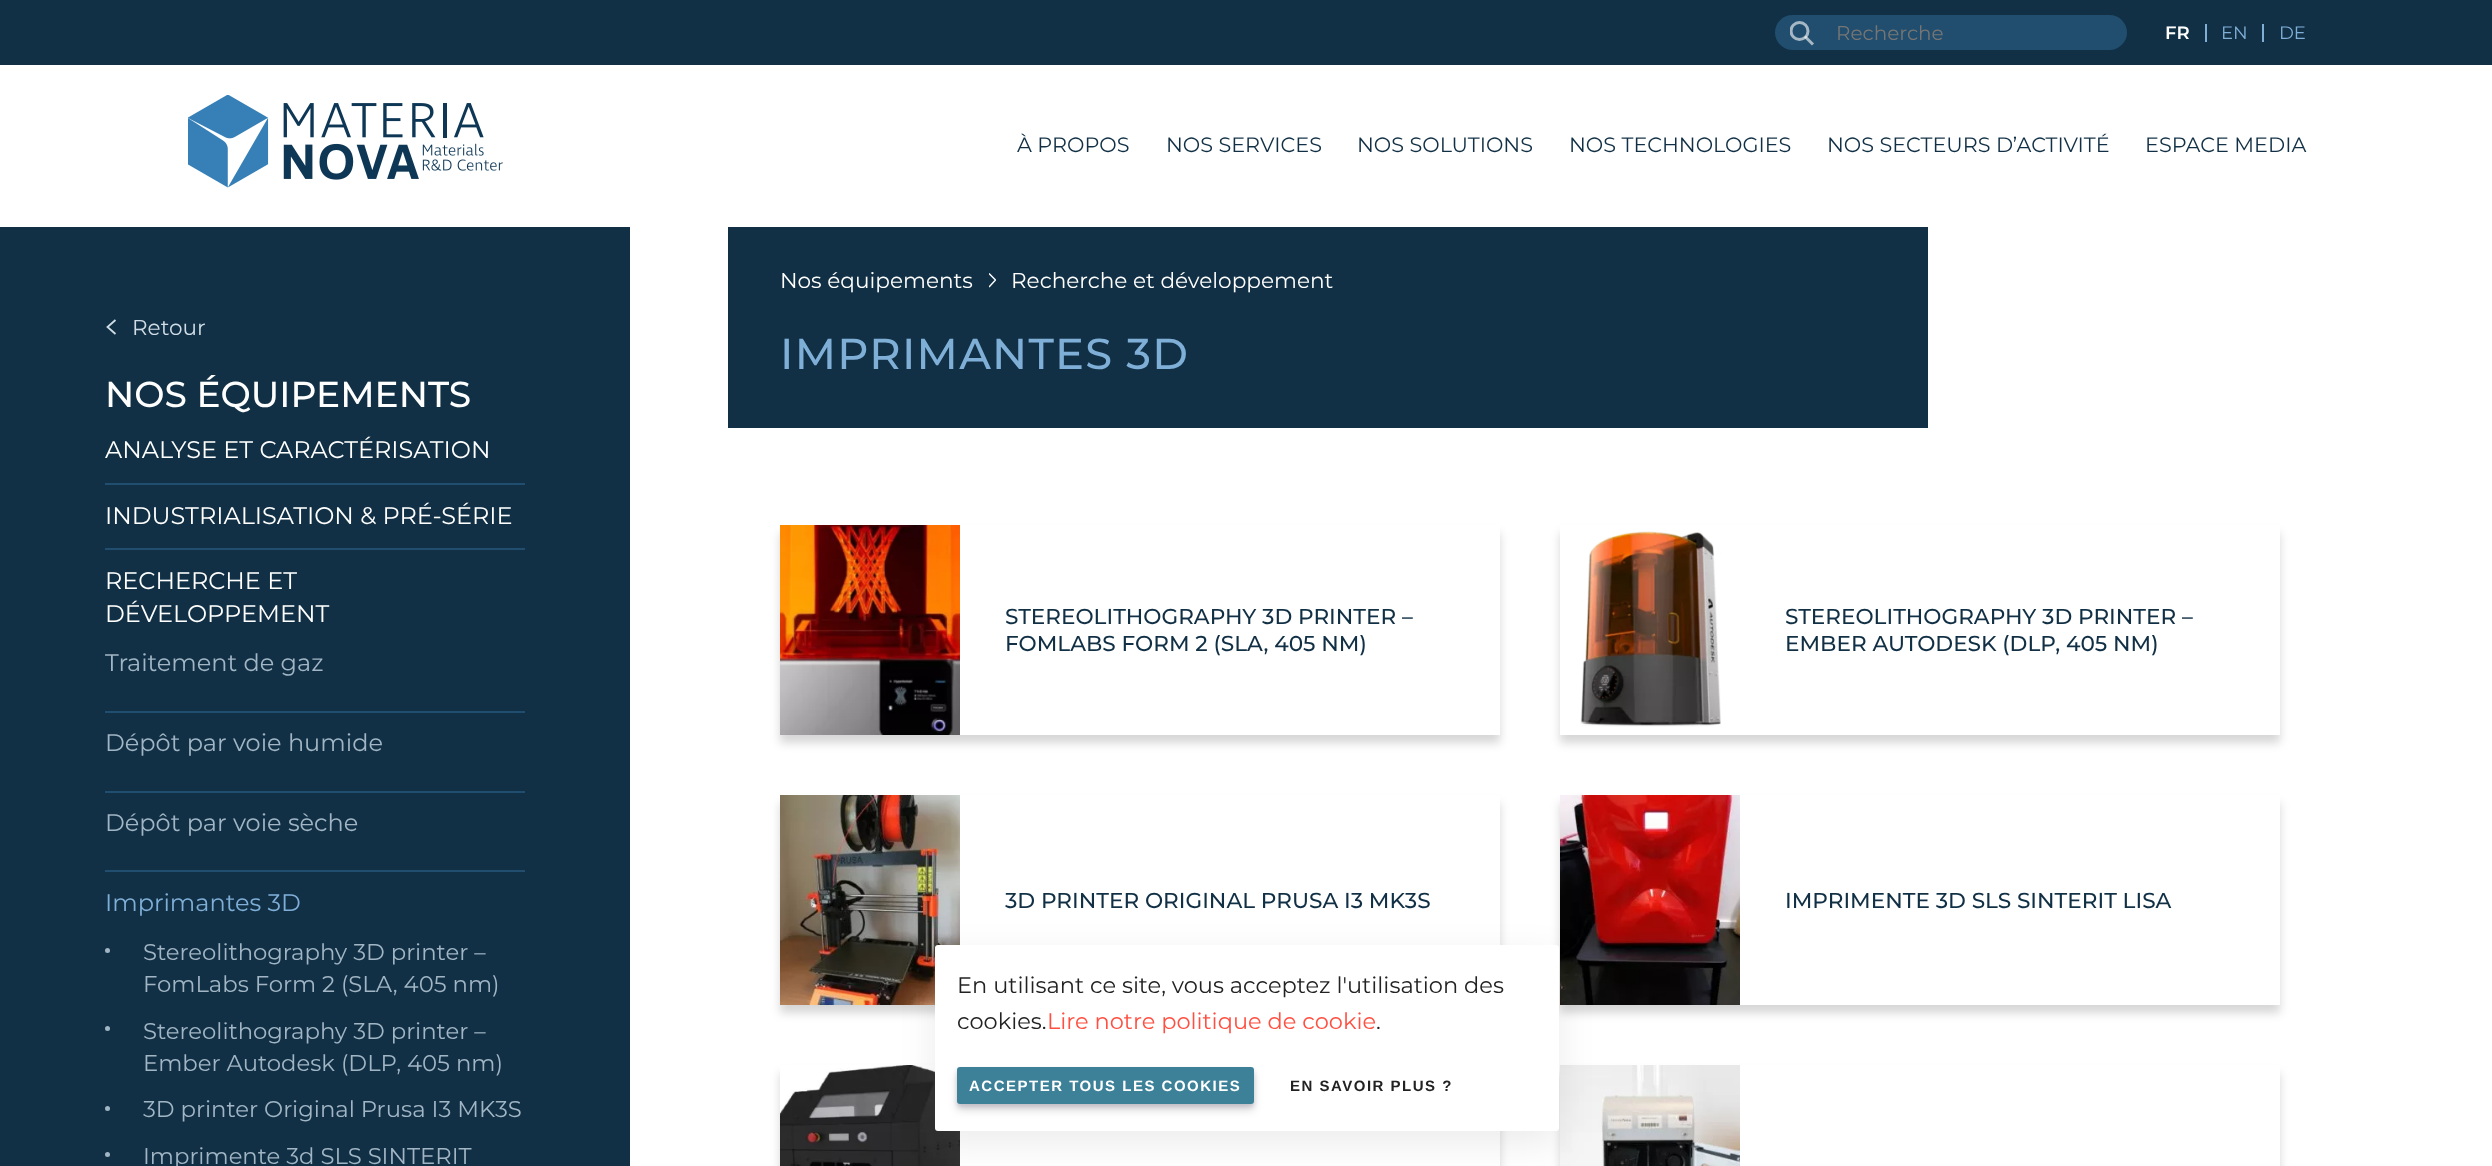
<svg xmlns="http://www.w3.org/2000/svg" width="2492" height="1166" viewBox="0 0 2492 1166">
  <defs>
    <clipPath id="clip1"><path d="M1790 21h24v24H1790z"/></clipPath>
    <clipPath id="clip2"><path d="M989 273h7v15H989z"/></clipPath>
    <clipPath id="clip3"><path d="M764 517H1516V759H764ZM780 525H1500V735H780Z" clip-rule="evenodd"/></clipPath>
    <clipPath id="clip4"><path d="M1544 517H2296V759H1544ZM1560 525H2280V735H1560Z" clip-rule="evenodd"/></clipPath>
    <clipPath id="clip5"><path d="M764 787H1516V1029H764ZM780 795H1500V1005H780Z" clip-rule="evenodd"/></clipPath>
    <clipPath id="clip6"><path d="M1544 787H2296V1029H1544ZM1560 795H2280V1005H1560Z" clip-rule="evenodd"/></clipPath>
    <clipPath id="clip7"><path d="M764 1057H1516V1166H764ZM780 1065H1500V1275H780Z" clip-rule="evenodd"/></clipPath>
    <clipPath id="clip8"><path d="M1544 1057H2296V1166H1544ZM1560 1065H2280V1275H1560Z" clip-rule="evenodd"/></clipPath>
  </defs>
  <rect width="100%" height="100%" fill="#fff"/>
  <path d="M0 0h2492v65H0z" fill="#113045"/>
  <rect x="1775" y="15" width="352" height="35" rx="17.5" fill="#214e6e"/>
  <g clip-path="url(#clip1)">
    <circle cx="1799.5" cy="31" r="8.5" fill="none" stroke="#a6b8c5" stroke-width="3"/>
  </g>
  <path d="M1813 44.5L1805 36.5" fill="none" stroke="#ffffff99" stroke-width="3"/>
  <path d="M2205 24h2v18H2205z" fill="#7fafd7"/>
  <path d="M2262 24h2v18H2262z" fill="#7fafd7"/>
  <image x="188" y="95" width="315" height="93" href="img/1.png"/>
  <path d="M0 227h630v939H0z" fill="#113045"/>
  <path d="M115.5 320L107.5 327L115.5 334" fill="none" stroke="#d0dde6" stroke-width="1.8"/>
  <path d="M105 483h420v2H105z" fill="#214e6e"/>
  <path d="M105 548h420v2H105z" fill="#214e6e"/>
  <path d="M105 711h420v2H105z" fill="#214e6e"/>
  <path d="M105 791h420v2H105z" fill="#214e6e"/>
  <path d="M105 870h420v2H105z" fill="#214e6e"/>
  <circle cx="107.5" cy="950.5" r="2.5" fill="#a1b5c4"/>
  <circle cx="107.5" cy="1028.5" r="2.5" fill="#a1b5c4"/>
  <circle cx="107.5" cy="1108.5" r="2.5" fill="#a1b5c4"/>
  <circle cx="107.5" cy="1154.5" r="2.5" fill="#a1b5c4"/>
  <path d="M728 227h1200v201H728z" fill="#113045"/>
  <g clip-path="url(#clip2)">
    <path d="M989 273.5L995.5 280L989 287" fill="none" stroke="#fff" stroke-width="1.5"/>
  </g>
  <g clip-path="url(#clip3)">
    <path d="M780 533h720v210H780z" fill="#00000029" filter="blur(5px)"/>
  </g>
  <image x="780" y="525" width="180" height="210" href="img/2.png"/>
  <g clip-path="url(#clip4)">
    <path d="M1560 533h720v210H1560z" fill="#00000029" filter="blur(5px)"/>
  </g>
  <image x="1580" y="531" width="141" height="196" href="img/3.png"/>
  <g clip-path="url(#clip5)">
    <path d="M780 803h720v210H780z" fill="#00000029" filter="blur(5px)"/>
  </g>
  <image x="780" y="795" width="180" height="210" href="img/4.png"/>
  <g clip-path="url(#clip6)">
    <path d="M1560 803h720v210H1560z" fill="#00000029" filter="blur(5px)"/>
  </g>
  <image x="1560" y="795" width="180" height="210" href="img/5.png"/>
  <g clip-path="url(#clip7)">
    <path d="M780 1073h720v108H780z" fill="#00000029" filter="blur(5px)"/>
  </g>
  <image x="780" y="1065" width="180" height="101" href="img/6.png"/>
  <g clip-path="url(#clip8)">
    <path d="M1560 1073h720v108H1560z" fill="#00000029" filter="blur(5px)"/>
  </g>
  <image x="1560" y="1065" width="180" height="101" href="img/7.png"/>
  <rect x="935" y="957" width="624" height="186" rx="3" fill="#00000014" filter="blur(18px)"/>
  <rect x="935" y="945" width="624" height="186" rx="3" fill="#fff"/>
  <rect x="957" y="1070" width="297" height="37" rx="3" fill="#300d4f26" filter="blur(2px)"/>
  <rect x="957" y="1073" width="297" height="37" rx="3" fill="#00000026" filter="blur(4.5px)"/>
  <rect x="957" y="1067" width="297" height="37" rx="3" fill="#3d8199"/>
  <text x="1836" y="40" font-family="Montserrat" font-size="20" fill="#757575">Recherche</text>
  <text x="2165" y="39" font-family="Montserrat" font-size="18" font-weight="600" fill="#fff">FR</text>
  <g font-family="Montserrat" font-size="18" fill="#7fafd7">
    <text x="2221" y="39">EN</text>
    <text x="2279" y="39">DE</text>
  </g>
  <g font-family="Montserrat" font-size="20.75" fill="#113045">
    <text x="1017" y="152">À PROPOS</text>
    <text x="1166" y="152">NOS SERVICES</text>
    <text x="1357" y="152">NOS SOLUTIONS</text>
    <text x="1569" y="152">NOS TECHNOLOGIES</text>
    <text x="1827" y="152">NOS SECTEURS D’ACTIVITÉ</text>
    <text x="2145" y="152">ESPACE MEDIA</text>
  </g>
  <text x="132" y="335" font-family="Montserrat" font-size="21.6" fill="#d0dde6">Retour</text>
  <text x="105" y="407" font-family="Montserrat" font-size="36" font-weight="500" fill="#fff">NOS ÉQUIPEMENTS</text>
  <g font-family="Montserrat" font-size="24" fill="#fff">
    <text x="105" y="458">ANALYSE ET CARACTÉRISATION</text>
    <text x="105" y="524">INDUSTRIALISATION &amp; PRÉ-SÉRIE</text>
    <text x="105" y="589">RECHERCHE ET</text>
    <text x="105" y="622">DÉVELOPPEMENT</text>
  </g>
  <g font-family="Montserrat" font-size="24" fill="#a1b5c4">
    <text x="105" y="671">Traitement de gaz</text>
    <text x="105" y="751">Dépôt par voie humide</text>
    <text x="105" y="831">Dépôt par voie sèche</text>
  </g>
  <text x="105" y="911" font-family="Montserrat" font-size="24" fill="#7fafd7">Imprimantes 3D</text>
  <g font-family="Montserrat" font-size="22.75" fill="#a1b5c4">
    <text x="143" y="960">Stereolithography 3D printer –</text>
    <text x="143" y="992">FomLabs Form 2 (SLA, 405 nm)</text>
    <text x="143" y="1039">Stereolithography 3D printer –</text>
    <text x="143" y="1071">Ember Autodesk (DLP, 405 nm)</text>
    <text x="143" y="1117">3D printer Original Prusa I3 MK3S</text>
    <text x="143" y="1164">Imprimente 3d SLS SINTERIT</text>
  </g>
  <g font-family="Montserrat" font-size="21.6" fill="#fff">
    <text x="780" y="288">Nos équipements</text>
    <text x="1011" y="288">Recherche et développement</text>
  </g>
  <text x="780" y="369" font-family="Montserrat" font-size="43.25" font-weight="500" letter-spacing="1.25" fill="#7fafd7">IMPRIMANTES 3D</text>
  <g font-family="Montserrat" font-size="21.6" font-weight="500" fill="#113045">
    <text x="1005" y="624">STEREOLITHOGRAPHY 3D PRINTER –</text>
    <text x="1005" y="651">FOMLABS FORM 2 (SLA, 405 NM)</text>
    <text x="1785" y="624">STEREOLITHOGRAPHY 3D PRINTER –</text>
    <text x="1785" y="651">EMBER AUTODESK (DLP, 405 NM)</text>
    <text x="1005" y="908">3D PRINTER ORIGINAL PRUSA I3 MK3S</text>
    <text x="1785" y="908">IMPRIMENTE 3D SLS SINTERIT LISA</text>
  </g>
  <g font-family="Montserrat" font-size="22.5" fill="#222">
    <text x="957" y="993">En utilisant ce site, vous acceptez l'utilisation des</text>
    <text x="957" y="1029">cookies.</text>
  </g>
  <text x="1047" y="1029" font-family="Montserrat" font-size="22.5" fill="#ff4f40">Lire notre politique de cookie</text>
  <text x="1376" y="1029" font-family="Montserrat" font-size="22.5" fill="#222">.</text>
  <text x="969" y="1091" font-family="Liberation Sans" font-size="15" font-weight="bold" letter-spacing="1.5" fill="#fff">ACCEPTER TOUS LES COOKIES</text>
  <text x="1290" y="1091" font-family="Liberation Sans" font-size="15" font-weight="bold" letter-spacing="1.5" fill="#222">EN SAVOIR PLUS ?</text>
</svg>
